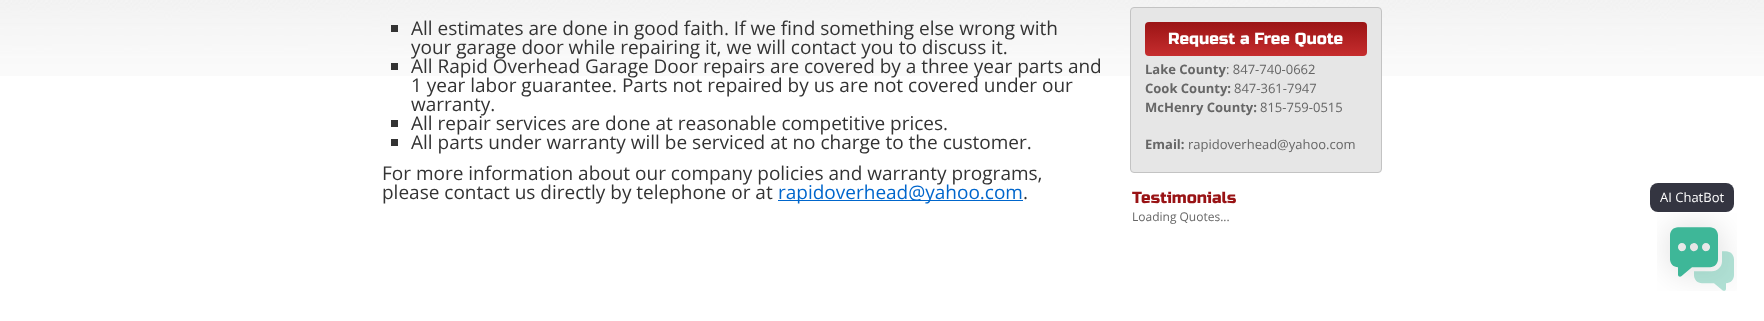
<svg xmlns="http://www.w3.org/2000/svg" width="1764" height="321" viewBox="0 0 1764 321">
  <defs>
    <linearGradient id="g1" gradientUnits="userSpaceOnUse" x1="1256" y1="22" x2="1256" y2="56"><stop offset="0" stop-color="#9b1415"/><stop offset="1" stop-color="#c62d2e"/></linearGradient>
  </defs>
  <rect width="100%" height="100%" fill="#fff"/>
  <image x="0" y="0" width="1764" height="76" href="img/1.png"/>
  <path d="M391 25h7v7H391z" fill="#333"/>
  <path d="M391 63h7v7H391z" fill="#333"/>
  <path d="M391 120h7v7H391z" fill="#333"/>
  <path d="M391 139h7v7H391z" fill="#333"/>
  <path d="M778 200h245v1H778z" fill="#06c"/>
  <rect x="1130.5" y="7.5" width="251" height="165" rx="3.5" fill="#e6e6e6" stroke="#c3c3c3"/>
  <rect x="1145" y="22" width="222" height="34" rx="4" fill="url(#g1)"/>
  <rect x="1650" y="183" width="84" height="29" rx="8" fill="#343541"/>
  <image x="1657" y="213" width="80" height="78" href="img/2.png"/>
  <g font-family="Open Sans" font-size="19" fill="#333">
    <text x="411" y="35">All estimates are done in good faith. If we find something else wrong with</text>
    <text x="411" y="54">your garage door while repairing it, we will contact you to discuss it.</text>
    <text x="411" y="73">All Rapid Overhead Garage Door repairs are covered by a three year parts and</text>
    <text x="411" y="92">1 year labor guarantee. Parts not repaired by us are not covered under our</text>
    <text x="411" y="111">warranty.</text>
    <text x="411" y="130">All repair services are done at reasonable competitive prices.</text>
    <text x="411" y="149">All parts under warranty will be serviced at no charge to the customer.</text>
    <text x="382" y="180">For more information about our company policies and warranty programs,</text>
    <text x="382" y="199">please contact us directly by telephone or at</text>
  </g>
  <text x="778" y="199" font-family="Open Sans" font-size="19" fill="#06c">rapidoverhead@yahoo.com</text>
  <text x="1023" y="199" font-family="Open Sans" font-size="19" fill="#333">.</text>
  <text x="1168" y="44" font-family="Russo One" font-size="16" fill="#fff">Request a Free Quote</text>
  <text x="1145" y="74" font-family="Open Sans" font-size="13" font-weight="bold" fill="#666">Lake County</text>
  <text x="1226" y="74" font-family="Open Sans" font-size="13" fill="#666">: 847-740-0662</text>
  <text x="1145" y="93" font-family="Open Sans" font-size="13" font-weight="bold" fill="#666">Cook County:</text>
  <text x="1234" y="93" font-family="Open Sans" font-size="13" fill="#666">847-361-7947</text>
  <text x="1145" y="112" font-family="Open Sans" font-size="13" font-weight="bold" fill="#666">McHenry County:</text>
  <text x="1260" y="112" font-family="Open Sans" font-size="13" fill="#666">815-759-0515</text>
  <text x="1145" y="149" font-family="Open Sans" font-size="13" font-weight="bold" fill="#666">Email:</text>
  <text x="1188" y="149" font-family="Open Sans" font-size="13" fill="#666">rapidoverhead@yahoo.com</text>
  <text x="1132" y="203" font-family="Russo One" font-size="16" fill="#991315">Testimonials</text>
  <text x="1132" y="221" font-family="Open Sans" font-size="12" fill="#666">Loading Quotes...</text>
  <text x="1660" y="202" font-family="Open Sans" font-size="13" fill="#fff">AI ChatBot</text>
</svg>
